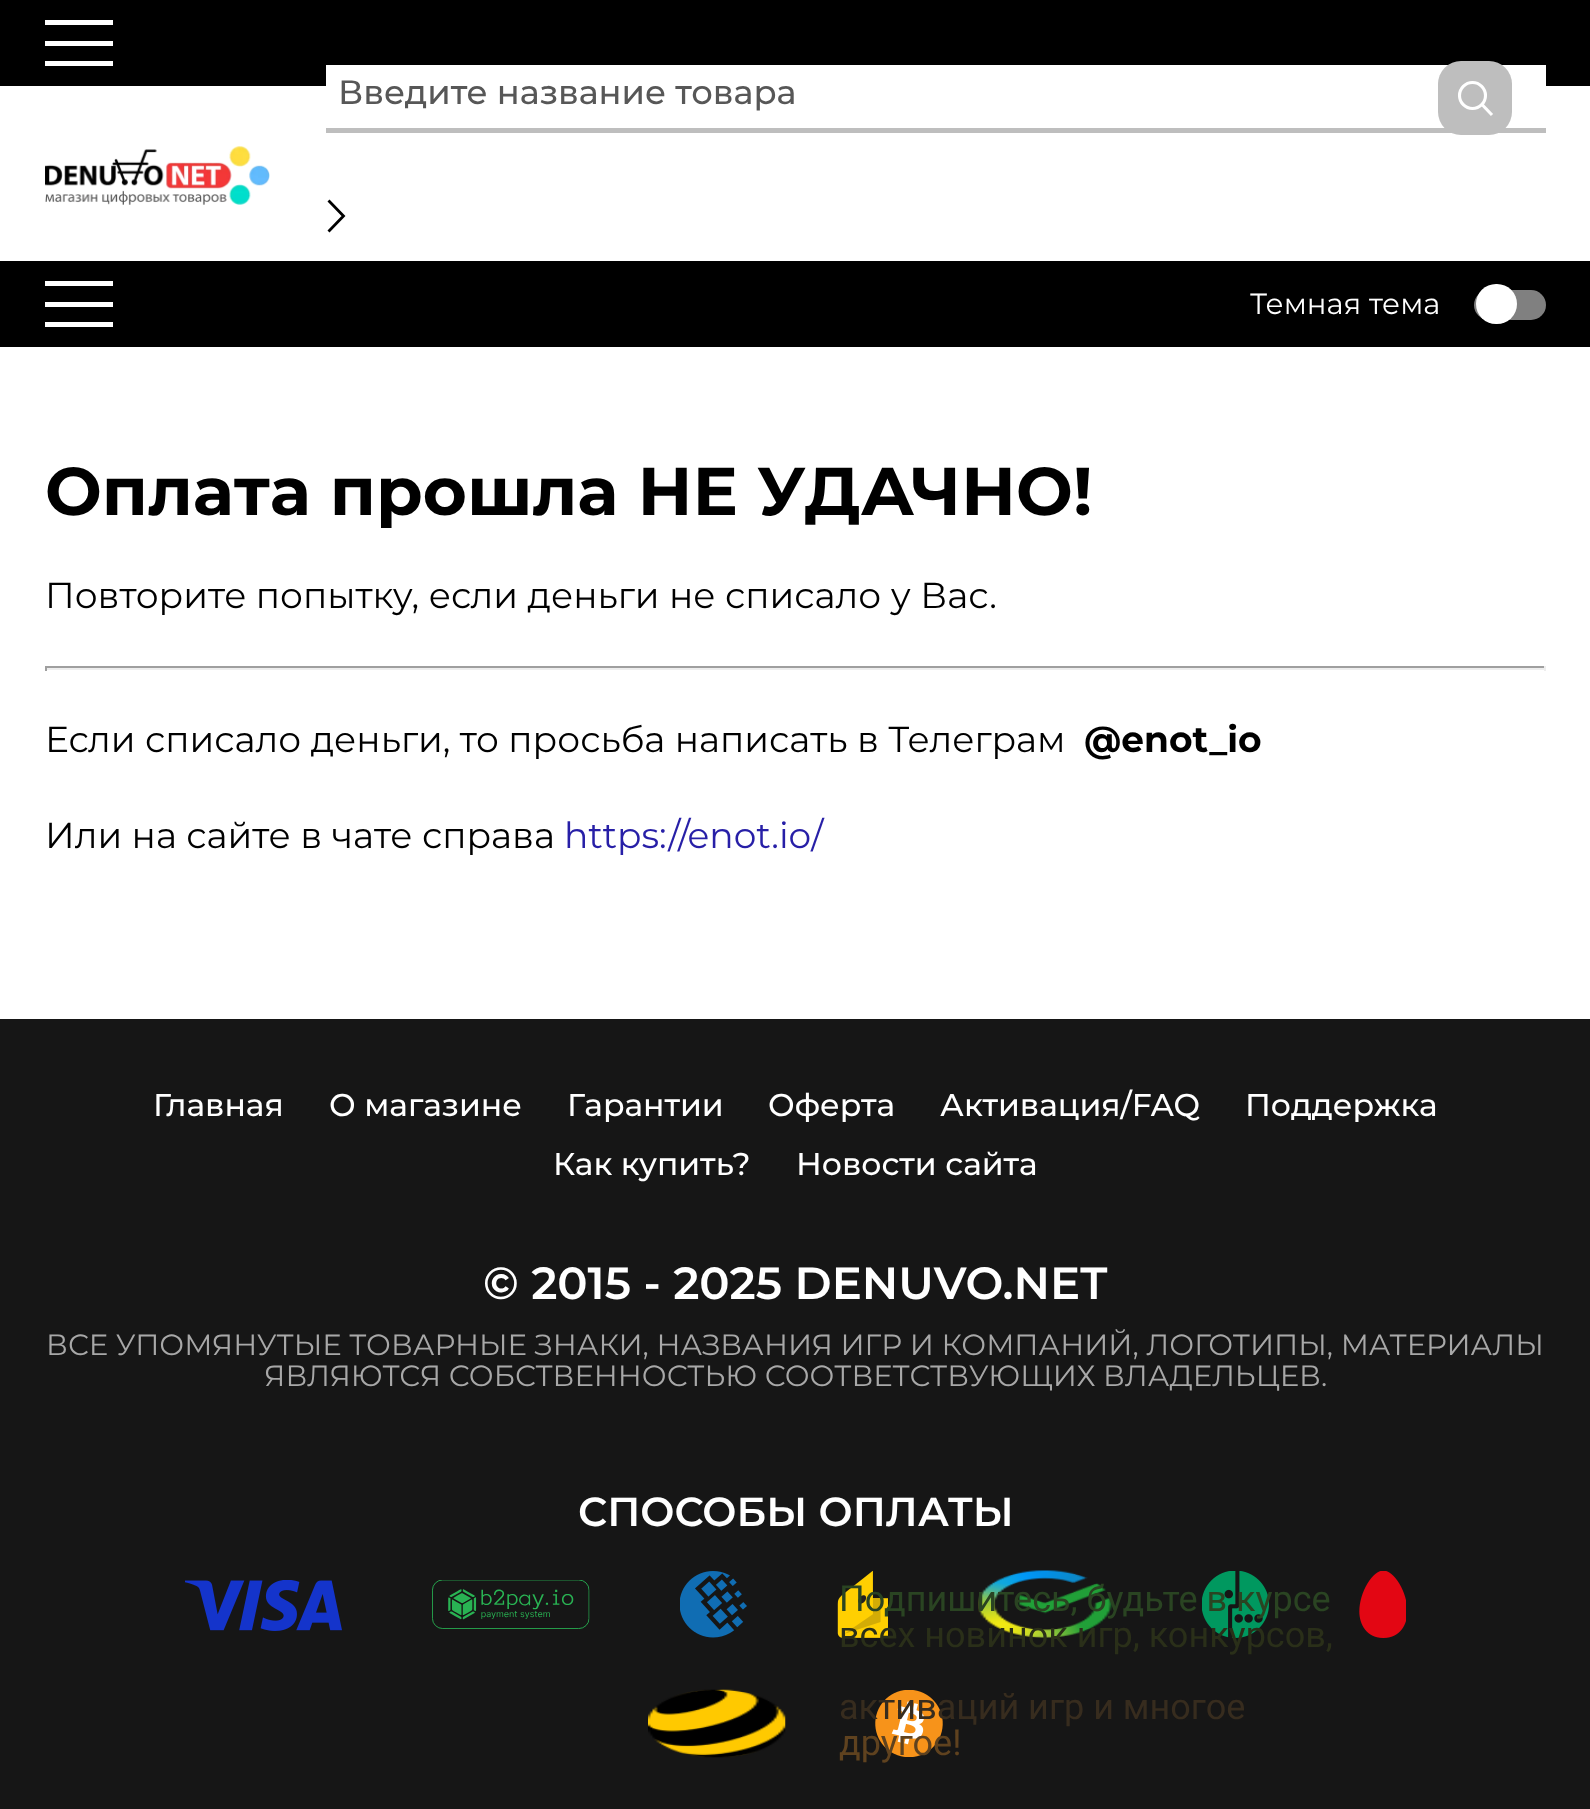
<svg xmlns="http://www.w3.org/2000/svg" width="1590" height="1809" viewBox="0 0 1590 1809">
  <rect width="100%" height="100%" fill="#fff"/>
  <path d="M0 0h1590v86H0z" fill="#000"/>
  <path d="M45 20h68v5H45z" fill="#fff"/>
  <path d="M45 41h68v5H45z" fill="#fff"/>
  <path d="M45 61h68v5H45z" fill="#fff"/>
  <path d="M326 65h1220v21H326z" fill="#fff"/>
  <path d="M326 128h1220v5H326z" fill="#bebebe"/>
  <rect x="1438" y="61" width="74" height="74" rx="23" fill="#bebebe"/>
  <circle cx="1472.5" cy="95.5" r="13" fill="none" stroke="#fff" stroke-width="3.1"/>
  <path d="M1482 104.5L1492 115" fill="none" stroke="#fff" stroke-width="3.1"/>
  <image x="45" y="146" width="225" height="59" href="img/1.png"/>
  <path d="M328.5 231.5L343.5 216L328.5 200.5" fill="none" stroke="#000" stroke-width="2.8"/>
  <path d="M0 261h1590v86H0z" fill="#000"/>
  <path d="M45 281h68v5H45z" fill="#fff"/>
  <path d="M45 302h68v5H45z" fill="#fff"/>
  <path d="M45 322h68v5H45z" fill="#fff"/>
  <rect x="1474" y="290" width="72" height="30" rx="15" fill="#808080"/>
  <rect x="1476" y="284" width="41" height="40" rx="20" fill="#fff"/>
  <path d="M45 666h1501v2H45z" fill="#9f9f9f"/>
  <path d="M1544 666h2v5H1544z" fill="#eee"/>
  <path d="M45 668h1501v2H45z" fill="#eee"/>
  <path d="M45 666h2v5H45z" fill="#9f9f9f"/>
  <path d="M0 1019h1590v790H0z" fill="#161616"/>
  <image x="185" y="1580" width="157" height="51" href="img/2.png"/>
  <image x="432" y="1580" width="158" height="49" href="img/3.png"/>
  <image x="680" y="1571" width="67" height="67" href="img/4.png"/>
  <image x="837" y="1571" width="51" height="67" href="img/5.png"/>
  <image x="978" y="1570" width="134" height="68" href="img/6.png"/>
  <image x="1202" y="1571" width="67" height="67" href="img/7.png"/>
  <image x="1359" y="1571" width="47" height="67" href="img/8.png"/>
  <image x="648" y="1689" width="138" height="69" href="img/9.png"/>
  <image x="875" y="1690" width="68" height="67" href="img/10.png"/>
  <text x="338" y="104" font-family="Montserrat" font-size="33.75" font-weight="500" fill="#575757">Введите название товара</text>
  <text x="1250" y="314" font-family="Montserrat" font-size="29.25" fill="#fff">Темная тема</text>
  <text x="45" y="515" font-family="Montserrat" font-size="67.5" font-weight="bold" fill="#000">Оплата прошла НЕ УДАЧНО!</text>
  <g font-family="Montserrat" font-size="36" fill="#000">
    <text x="45" y="608">Повторите попытку, если деньги не списало у Вас.</text>
    <text x="45" y="752">Если списало деньги, то просьба написать в Телеграм</text>
  </g>
  <text x="1084" y="752" font-family="Montserrat" font-size="36" font-weight="bold" fill="#000">@enot_io</text>
  <text x="45" y="848" font-family="Montserrat" font-size="36" fill="#000">Или на сайте в чате справа</text>
  <text x="564" y="848" font-family="Montserrat" font-size="36" fill="#271fa7">https://enot.io/</text>
  <g font-family="Montserrat" font-size="31.5" font-weight="500" fill="#fff">
    <text x="153" y="1116">Главная</text>
    <text x="329" y="1116">О магазине</text>
    <text x="567" y="1116">Гарантии</text>
    <text x="768" y="1116">Оферта</text>
    <text x="940" y="1116">Активация/FAQ</text>
    <text x="1245" y="1116">Поддержка</text>
    <text x="553" y="1175">Как купить?</text>
    <text x="796" y="1175">Новости сайта</text>
  </g>
  <text x="483" y="1299" font-family="Montserrat" font-size="45" font-weight="600" fill="#fff">© 2015 - 2025 DENUVO.NET</text>
  <g font-family="Montserrat" font-size="29.25" fill="#a8a8a8">
    <text x="46" y="1355">ВСЕ УПОМЯНУТЫЕ ТОВАРНЫЕ ЗНАКИ, НАЗВАНИЯ ИГР И КОМПАНИЙ, ЛОГОТИПЫ, МАТЕРИАЛЫ</text>
    <text x="264" y="1386">ЯВЛЯЮТСЯ СОБСТВЕННОСТЬЮ СООТВЕТСТВУЮЩИХ ВЛАДЕЛЬЦЕВ.</text>
  </g>
  <text x="578" y="1526" font-family="Montserrat" font-size="40.5" font-weight="600" fill="#fff">СПОСОБЫ ОПЛАТЫ</text>
  <text x="839" y="1611" font-family="Roboto" font-size="36" fill="#2a4422">Подпишитесь, будьте в курсе</text>
  <text x="839" y="1647" font-family="Roboto" font-size="36" fill="#2a2f19">всех новинок игр, конкурсов,</text>
  <text x="839" y="1719" font-family="Roboto" font-size="36" fill="#372c1e">активаций игр и многое</text>
  <text x="839" y="1755" font-family="Roboto" font-size="36" fill="#5f421f">другое!</text>
</svg>
